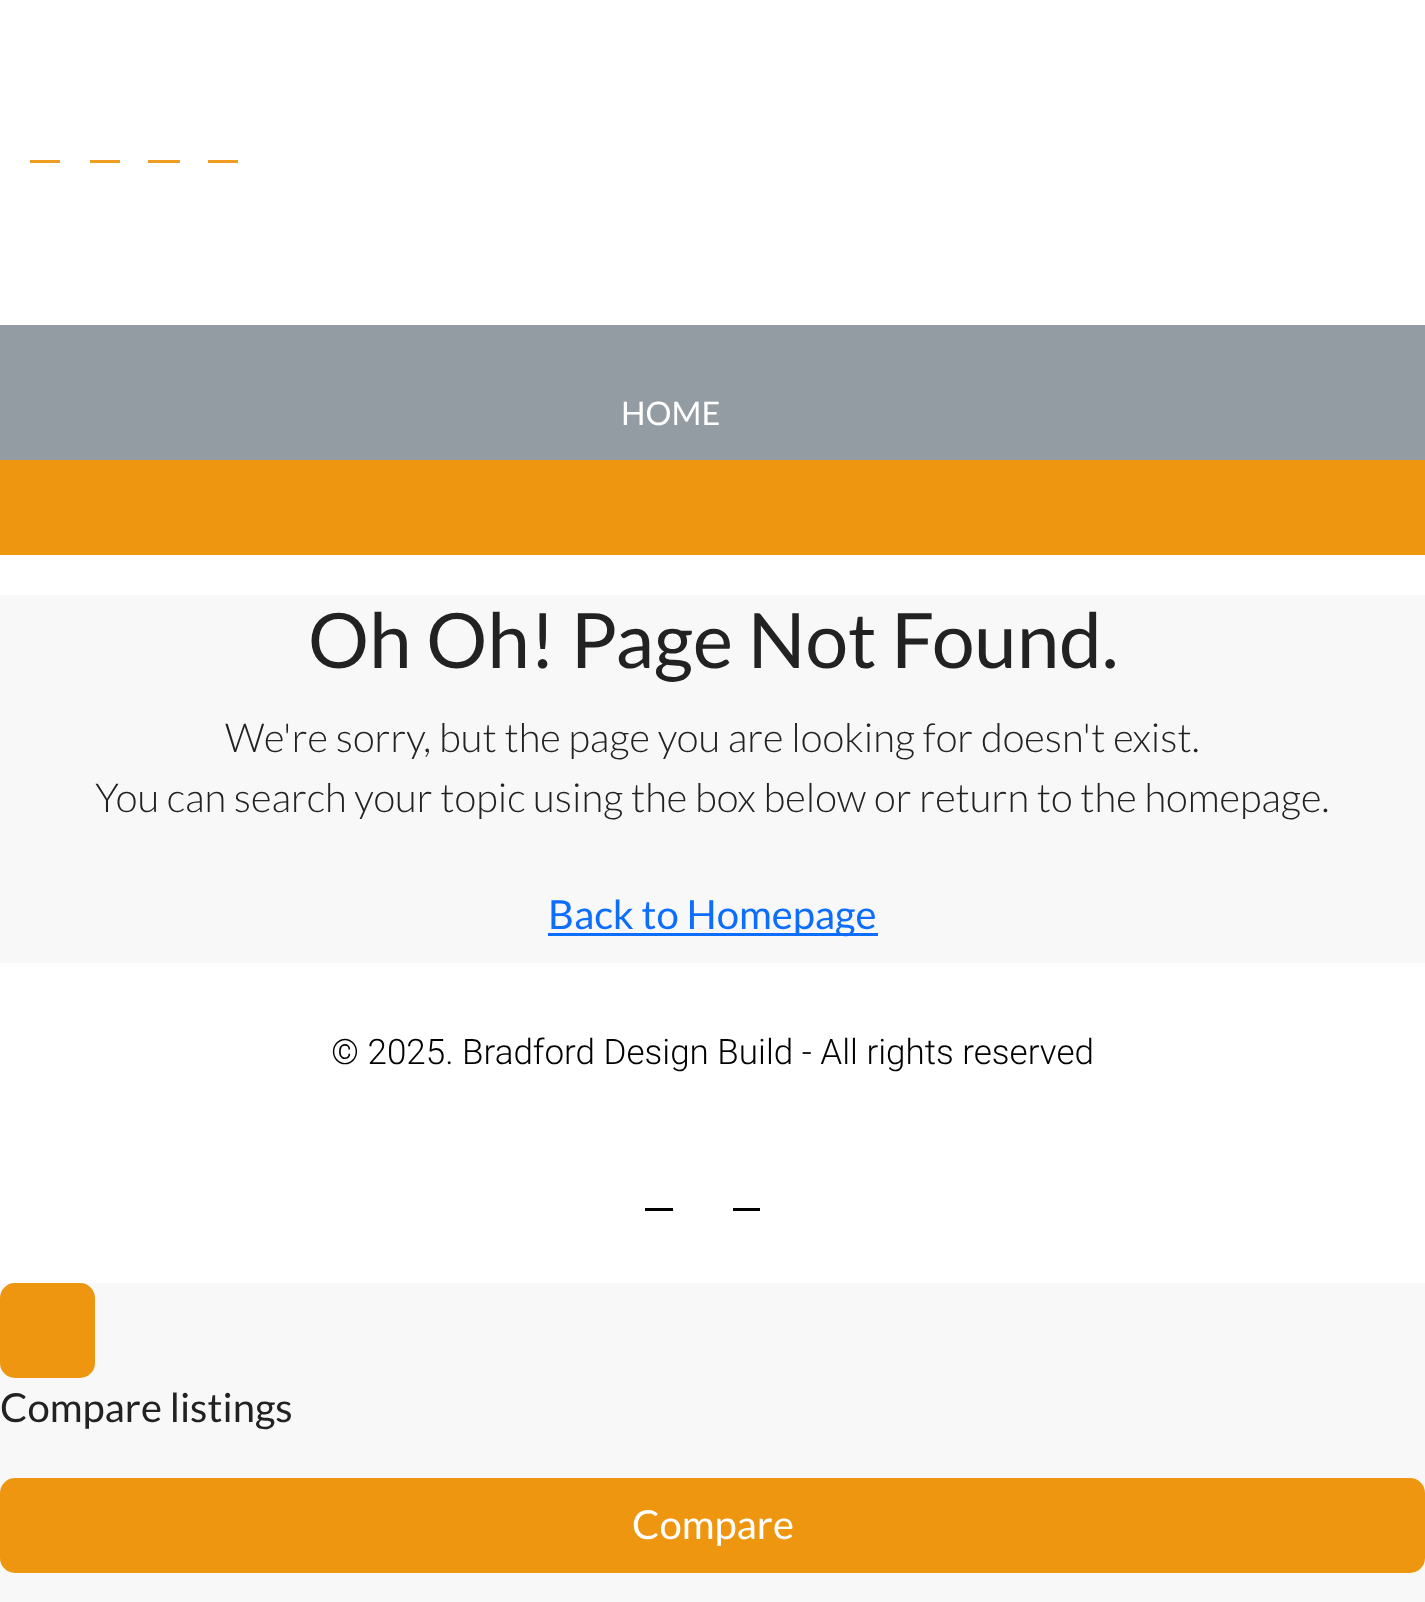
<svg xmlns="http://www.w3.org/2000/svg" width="1425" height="1602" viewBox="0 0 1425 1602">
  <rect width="100%" height="100%" fill="#f8f8f8"/>
  <path d="M0 0h1425v325H0z" fill="#fff"/>
  <path d="M30 160h30v3H30z" fill="#f09e21"/>
  <path d="M90 160h30v3H90z" fill="#f09e21"/>
  <path d="M148 160h32v3H148z" fill="#f09e21"/>
  <path d="M208 160h30v3H208z" fill="#f09e21"/>
  <path d="M0 325h1425v135H0z" fill="#939ca2"/>
  <path d="M0 460h1425v95H0z" fill="#ef9610"/>
  <path d="M0 555h1425v40H0z" fill="#fff"/>
  <path d="M548 933h330v3H548z" fill="#0d6efd"/>
  <path d="M0 963h1425v320H0z" fill="#fff"/>
  <path d="M645 1208h28v3H645z" fill="#000"/>
  <path d="M733 1208h27v3H733z" fill="#000"/>
  <rect x="1.5" y="1284.5" width="92" height="92" rx="13.5" fill="#ef9610" stroke="#ef9610" stroke-width="3"/>
  <rect x="1.5" y="1479.5" width="1422" height="92" rx="13.5" fill="#ef9610" stroke="#ef9610" stroke-width="3"/>
  <text x="621" y="425" font-family="Lato" font-size="32.5" fill="#fff">HOME</text>
  <text x="308" y="668" font-family="Lato" font-size="76.4" fill="#222">Oh Oh! Page Not Found.</text>
  <g font-family="Lato" font-size="40" font-weight="300" fill="#222">
    <text x="225" y="752">We're sorry, but the page you are looking for doesn't exist.</text>
    <text x="95" y="812">You can search your topic using the box below or return to the homepage.</text>
  </g>
  <text x="548" y="929" font-family="Lato" font-size="40" fill="#0d6efd">Back to Homepage</text>
  <text x="331" y="1064" font-family="Roboto" font-size="35" font-weight="300" fill="#000">© 2025. Bradford Design Build - All rights reserved</text>
  <text x="0" y="1422" font-family="Lato" font-size="40" fill="#222">Compare listings</text>
  <text x="632" y="1539" font-family="Lato" font-size="40" fill="#fff">Compare</text>
</svg>
